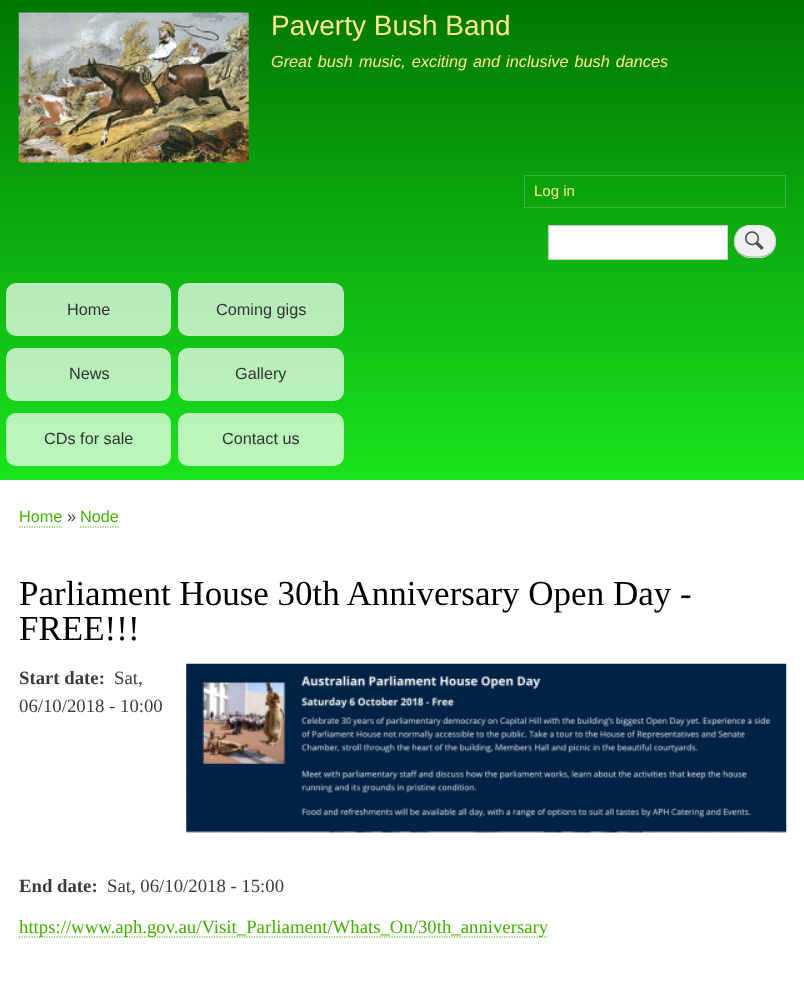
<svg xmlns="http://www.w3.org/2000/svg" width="804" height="1008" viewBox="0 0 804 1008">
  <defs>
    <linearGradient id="g1" gradientUnits="userSpaceOnUse" x1="403" y1="0" x2="403" y2="480"><stop offset="0" stop-color="#007802"/><stop offset="1" stop-color="#1ae41d"/></linearGradient>
  </defs>
  <rect width="100%" height="100%" fill="#fff"/>
  <path d="M0 0h804v480H0z" fill="url(#g1)"/>
  <image x="18" y="12" width="231" height="151" href="img/1.png"/>
  <path d="M524.5 175.5h261v32H524.5z" fill="none" stroke="#ffffff33"/>
  <path d="M548.5 225.5h179v34H548.5z" fill="#fff" stroke="#ccc"/>
  <rect x="734" y="225" width="42" height="33" rx="16.5" fill="#f0f0f0"/>
  <image x="745" y="231" width="19" height="19" href="img/2.png"/>
  <path d="M739 230C743.5 225.5 749 225.5 755 225.5C761 225.5 766.5 225.5 771 230" fill="none" stroke="#e4e4e4" stroke-width="1.2"/>
  <path d="M771 230C777 236 777 246.5 771 252.5" fill="none" stroke="#d2d2d2" stroke-width="1.2"/>
  <path d="M771 252.5C766.5 257 761 257 755 257C749 257 743.5 257 739 252.5" fill="none" stroke="#b4b4b4" stroke-width="1.2"/>
  <path d="M739 252.5C733 246.5 733 236 739 230" fill="none" stroke="#d2d2d2" stroke-width="1.2"/>
  <rect x="6" y="283" width="165" height="53" rx="10" fill="#ffffffb3"/>
  <rect x="178" y="283" width="166" height="53" rx="10" fill="#ffffffb3"/>
  <rect x="6" y="348" width="165" height="53" rx="10" fill="#ffffffb3"/>
  <rect x="178" y="348" width="166" height="53" rx="10" fill="#ffffffb3"/>
  <rect x="6" y="413" width="165" height="53" rx="10" fill="#ffffffb3"/>
  <rect x="178" y="413" width="166" height="53" rx="10" fill="#ffffffb3"/>
  <path d="M19 527H62.5" fill="none" stroke="#42b000" stroke-width="1.2" stroke-dasharray="1.25 1.25"/>
  <path d="M80 527H119" fill="none" stroke="#42b000" stroke-width="1.2" stroke-dasharray="1.25 1.25"/>
  <image x="186" y="663" width="601" height="170" href="img/3.png"/>
  <path d="M19 937H547.5" fill="none" stroke="#42b000" stroke-width="1.2" stroke-dasharray="1.25 1.25"/>
  <text x="271" y="35" font-family="Liberation Sans" font-size="28" fill="#ffe88c">Paverty Bush Band</text>
  <text x="271" y="67" word-spacing="1.5" font-family="Liberation Sans" font-size="16.25" font-style="italic" fill="#ffe88c">Great bush music, exciting and inclusive bush dances</text>
  <text x="534" y="196" font-family="Liberation Sans" font-size="15" fill="#ffe88c">Log in</text>
  <g font-family="Liberation Sans" font-size="16.25" fill="#333">
    <text x="67" y="315">Home</text>
    <text x="216" y="315">Coming gigs</text>
    <text x="69" y="379">News</text>
    <text x="235" y="379">Gallery</text>
    <text x="44" y="444">CDs for sale</text>
    <text x="222" y="444">Contact us</text>
  </g>
  <text x="19" y="522" font-family="Liberation Sans" font-size="16.25" fill="#42b000">Home</text>
  <text x="67" y="522" font-family="Liberation Sans" font-size="16.25" fill="#3b3b3b">»</text>
  <text x="80" y="522" font-family="Liberation Sans" font-size="16.25" fill="#42b000">Node</text>
  <g font-family="Liberation Serif" font-size="35" fill="#000">
    <text x="19" y="605">Parliament House 30th Anniversary Open Day -</text>
    <text x="19" y="640">FREE!!!</text>
  </g>
  <text x="19" y="684" font-family="Liberation Serif" font-size="18.75" font-weight="bold" fill="#3b3b3b">Start date:</text>
  <g font-family="Liberation Serif" font-size="18.75" fill="#3b3b3b">
    <text x="114" y="684">Sat,</text>
    <text x="19" y="712">06/10/2018 - 10:00</text>
  </g>
  <text x="19" y="892" font-family="Liberation Serif" font-size="18.75" font-weight="bold" fill="#3b3b3b">End date:</text>
  <text x="107" y="892" font-family="Liberation Serif" font-size="18.75" fill="#3b3b3b">Sat, 06/10/2018 - 15:00</text>
  <text x="19" y="933" font-family="Liberation Serif" font-size="18.75" fill="#42b000">https://www.aph.gov.au/Visit_Parliament/Whats_On/30th_anniversary</text>
</svg>
